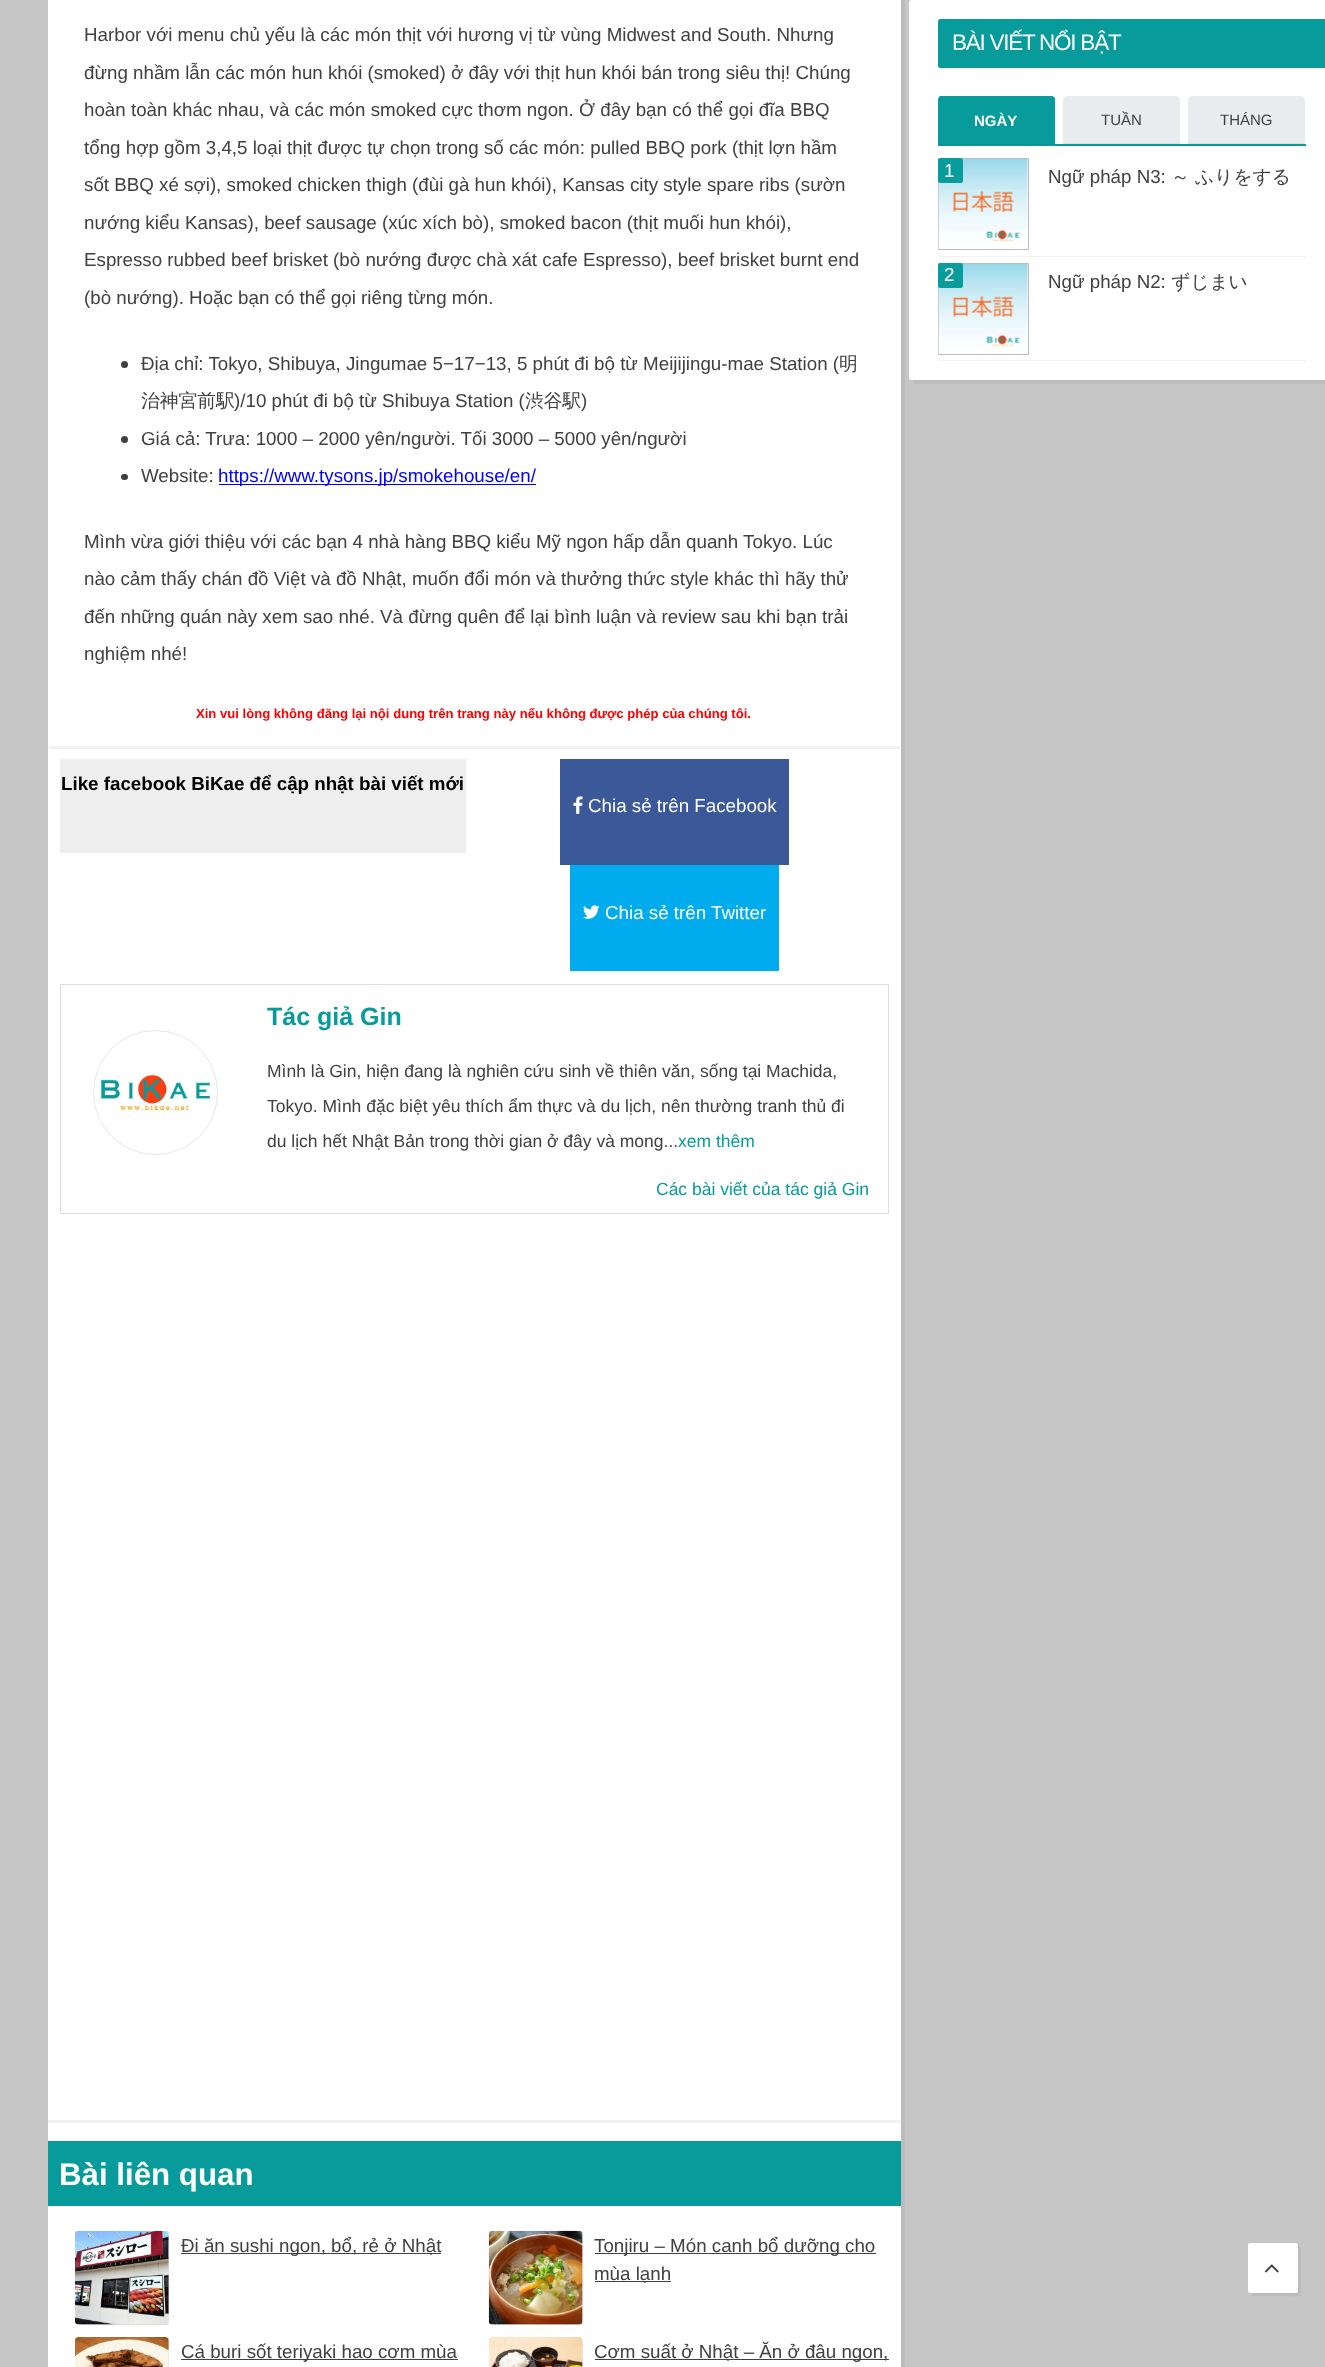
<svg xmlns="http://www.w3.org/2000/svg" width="1325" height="2367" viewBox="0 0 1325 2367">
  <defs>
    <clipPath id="clip1"><path d="M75 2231h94v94H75z"/></clipPath>
    <clipPath id="clip2"><path d="M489 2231h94v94H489z"/></clipPath>
    <clipPath id="clip3"><path d="M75 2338h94v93H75z"/></clipPath>
    <clipPath id="clip4"><path d="M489 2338h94v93H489z"/></clipPath>
  </defs>
  <rect width="100%" height="100%" fill="#c6c6c6"/>
  <path d="M51 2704V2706C51 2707 52 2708 54 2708H902C904 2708 905 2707 905 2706V-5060C905-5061 904-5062 902-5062H901V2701C901 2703 900 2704 899 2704Z" fill="#bcbcbc"/>
  <path d="M48 0h853v2367H48z" fill="#fff"/>
  <path d="M49 746h851v3H49z" fill="#f2f2f2"/>
  <circle cx="124.5" cy="364.5" r="3.5" fill="#404040"/>
  <circle cx="124.5" cy="439.5" r="3.5" fill="#404040"/>
  <rect x="121" y="474" width="7" height="6" rx="3" fill="#404040"/>
  <path d="M219 484h317v1H219z" fill="#00f"/>
  <path d="M60 759h406v94H60z" fill="#eee"/>
  <path d="M560 759h229v106H560z" fill="#3b5998"/>
  <image x="573" y="796" width="10" height="18" href="img/1.png"/>
  <path d="M570 865h209v106H570z" fill="#00aced"/>
  <image x="583" y="905" width="17" height="14" href="img/2.png"/>
  <path d="M60.5 984.5h828v229H60.5z" fill="none" stroke="#dedede"/>
  <image x="99" y="1072" width="113" height="41" href="img/3.png"/>
  <circle cx="155.5" cy="1092.5" r="62" fill="none" stroke="#e6e6e6"/>
  <path d="M48 2120h853v3H48z" fill="#f2f2f2"/>
  <path d="M48 2141h853v65H48z" fill="#079b9b"/>
  <g clip-path="url(#clip1)">
    <rect x="75" y="2233" width="94" height="93" rx="4" fill="#00000033" filter="blur(2.5px)"/>
  </g>
  <image x="75" y="2230" width="94" height="95" href="img/4.png"/>
  <path d="M181 2253h260v1H181z" fill="#404040"/>
  <g clip-path="url(#clip2)">
    <rect x="489" y="2233" width="94" height="93" rx="4" fill="#00000033" filter="blur(2.5px)"/>
  </g>
  <image x="488" y="2230" width="95" height="95" href="img/5.png"/>
  <path d="M595 2253h281v1H595z" fill="#404040"/>
  <path d="M595 2281h76v1H595z" fill="#404040"/>
  <g clip-path="url(#clip3)">
    <rect x="75" y="2339" width="94" height="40" rx="4" fill="#00000033" filter="blur(2.5px)"/>
  </g>
  <image x="75" y="2337" width="94" height="30" href="img/6.png"/>
  <path d="M181 2359h277v1H181z" fill="#404040"/>
  <g clip-path="url(#clip4)">
    <rect x="489" y="2339" width="94" height="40" rx="4" fill="#00000033" filter="blur(2.5px)"/>
  </g>
  <image x="489" y="2337" width="94" height="30" href="img/7.png"/>
  <path d="M595 2359h294v1H595z" fill="#404040"/>
  <path d="M913 380V382C913 383 914 384 916 384H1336C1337 384 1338 383 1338 382V6C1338 5 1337 4 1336 4H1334V378C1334 379 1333 380 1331 380Z" fill="#bcbcbc"/>
  <rect x="909" width="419" height="380" rx="2.5" fill="#fff"/>
  <rect x="938" y="19" width="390" height="49" rx="2.5" fill="#079b9b"/>
  <path d="M938 145h368v1H938z" fill="#079b9b"/>
  <path d="M942 96H1051C1053 96 1055 98 1055 100V145H938V100C938 98 940 96 942 96Z" fill="#079b9b"/>
  <path d="M941 98L940 99L939 97L940 96H1052L1054 97L1053 98H1051Z" fill="#079b9b"/>
  <path d="M1055 145V100C1055 99 1055 98 1054 97L1053 98L1054 100V144Z" fill="#079b9b"/>
  <path d="M1055 145L1054 144H939L938 145Z" fill="#079393"/>
  <path d="M938 144V100L939 97L940 99C938 100 939 138 939 144Z" fill="#079b9b"/>
  <path d="M1067 96H1176C1178 96 1180 98 1180 100V144H1063V100C1063 98 1065 96 1067 96Z" fill="#e9ebee"/>
  <path d="M1063 143h117v1H1063z" fill="#dddfe2"/>
  <path d="M1192 96H1301C1303 96 1305 98 1305 100V144H1188V100C1188 98 1190 96 1192 96Z" fill="#e9ebee"/>
  <path d="M1188 143h117v1H1188z" fill="#dddfe2"/>
  <path d="M1055 144h251v1H1055z" fill="#079b9b"/>
  <path d="M938 256h368v1H938z" fill="#f2f2f2"/>
  <path d="M938.5 158.5h90v91H938.5z" fill="none" stroke="#bbb"/>
  <image x="938" y="158" width="90" height="91" href="img/8.png"/>
  <rect x="938" y="158" width="25" height="25" rx="2.5" fill="#079b9bfc"/>
  <path d="M938 360h368v1H938z" fill="#f2f2f2"/>
  <path d="M938.5 263.5h90v91H938.5z" fill="none" stroke="#bbb"/>
  <image x="938" y="263" width="90" height="91" href="img/9.png"/>
  <rect x="938" y="263" width="25" height="25" rx="2.5" fill="#079b9bfc"/>
  <path d="M1251 2292C1251 2298 1257 2296 1261 2296H1268C1272 2296 1298 2297 1300 2296L1301 2294V2248C1300 2246 1299 2246 1298 2246V2290C1298 2291 1296 2292 1295 2292Z" fill="#bcbcbc"/>
  <rect x="1248" y="2243" width="50" height="50" rx="2.5" fill="#fff"/>
  <image x="1264" y="2264" width="15" height="9" href="img/10.png"/>
  <g font-family="Liberation Sans" font-size="18.75" fill="#404040">
    <text x="84" y="41">Harbor với menu chủ yếu là các món thịt với hương vị từ vùng Midwest and South. Nhưng</text>
    <text x="84" y="79">đừng nhầm lẫn các món hun khói (smoked) ở đây với thịt hun khói bán trong siêu thị! Chúng</text>
    <text x="84" y="116">hoàn toàn khác nhau, và các món smoked cực thơm ngon. Ở đây bạn có thể gọi đĩa BBQ</text>
    <text x="84" y="154">tổng hợp gồm 3,4,5 loại thịt được tự chọn trong số các món: pulled BBQ pork (thịt lợn hầm</text>
    <text x="84" y="191">sốt BBQ xé sợi), smoked chicken thigh (đùi gà hun khói), Kansas city style spare ribs (sườn</text>
    <text x="84" y="229">nướng kiểu Kansas), beef sausage (xúc xích bò), smoked bacon (thịt muối hun khói),</text>
    <text x="84" y="266">Espresso rubbed beef brisket (bò nướng được chà xát cafe Espresso), beef brisket burnt end</text>
    <text x="84" y="304">(bò nướng). Hoặc bạn có thể gọi riêng từng món.</text>
    <text x="141" y="370">Địa chỉ: Tokyo, Shibuya, Jingumae 5−17−13, 5 phút đi bộ từ Meijijingu-mae Station (</text>
  </g>
  <g font-family="WenQuanYi Zen Hei" font-size="18.75" font-weight="500" fill="#404040">
    <text x="839" y="370">明</text>
    <text x="141" y="407">治神宮前駅</text>
  </g>
  <text x="234" y="407" font-family="Liberation Sans" font-size="18.75" fill="#404040">)/10 phút đi bộ từ Shibuya Station (</text>
  <text x="525" y="407" font-family="WenQuanYi Zen Hei" font-size="18.75" font-weight="500" fill="#404040">渋谷駅</text>
  <g font-family="Liberation Sans" font-size="18.75" fill="#404040">
    <text x="581" y="407">)</text>
    <text x="141" y="445">Giá cả: Trưa: 1000 – 2000 yên/người. Tối 3000 – 5000 yên/người</text>
    <text x="141" y="482">Website:</text>
  </g>
  <text x="218" y="482" font-family="Liberation Sans" font-size="18.75" fill="#00f">https://www.tysons.jp/smokehouse/en/</text>
  <g font-family="Liberation Sans" font-size="18.75" fill="#404040">
    <text x="84" y="548">Mình vừa giới thiệu với các bạn 4 nhà hàng BBQ kiểu Mỹ ngon hấp dẫn quanh Tokyo. Lúc</text>
    <text x="84" y="585">nào cảm thấy chán đồ Việt và đồ Nhật, muốn đổi món và thưởng thức style khác thì hãy thử</text>
    <text x="84" y="623">đến những quán này xem sao nhé. Và đừng quên để lại bình luận và review sau khi bạn trải</text>
    <text x="84" y="660">nghiệm nhé!</text>
  </g>
  <text x="196" y="718" font-family="Liberation Sans" font-size="13.1" font-weight="bold" fill="#f00">Xin vui lòng không đăng lại nội dung trên trang này nếu không được phép của chúng tôi.</text>
  <text x="61" y="790" font-family="Liberation Sans" font-size="18.75" font-weight="bold" fill="#000">Like facebook BiKae để cập nhật bài viết mới</text>
  <g font-family="Liberation Sans" font-size="18.75" fill="#fff">
    <text x="588" y="812">Chia sẻ trên Facebook</text>
    <text x="605" y="919">Chia sẻ trên Twitter</text>
  </g>
  <text x="267" y="1025" font-family="Liberation Sans" font-size="25" font-weight="bold" fill="#079b9b">Tác giả Gin</text>
  <g font-family="Liberation Sans" font-size="17.5" fill="#404040">
    <text x="267" y="1077">Mình là Gin, hiện đang là nghiên cứu sinh về thiên văn, sống tại Machida,</text>
    <text x="267" y="1112">Tokyo. Mình đặc biệt yêu thích ẩm thực và du lịch, nên thường tranh thủ đi</text>
    <text x="267" y="1147">du lịch hết Nhật Bản trong thời gian ở đây và mong...</text>
  </g>
  <g font-family="Liberation Sans" font-size="17.5" fill="#079b9b">
    <text x="678" y="1147">xem thêm</text>
    <text x="656" y="1195">Các bài viết của tác giả Gin</text>
  </g>
  <text x="59" y="2185" font-family="Liberation Sans" font-size="31.25" font-weight="bold" fill="#fff">Bài liên quan</text>
  <g font-family="Liberation Sans" font-size="18.75" fill="#404040">
    <text x="181" y="2252">Đi ăn sushi ngon, bổ, rẻ ở Nhật</text>
    <text x="594" y="2252">Tonjiru – Món canh bổ dưỡng cho</text>
    <text x="594" y="2280">mùa lạnh</text>
    <text x="181" y="2358">Cá buri sốt teriyaki hao cơm mùa</text>
    <text x="594" y="2358">Cơm suất ở Nhật – Ăn ở đâu ngon,</text>
  </g>
  <text x="952" y="50" font-family="Liberation Sans" font-size="22.5" letter-spacing="-1.25" fill="#fff">BÀI VIẾT NỔI BẬT</text>
  <text x="974" y="126" font-family="Liberation Sans" font-size="15" font-weight="bold" fill="#fff">NGÀY</text>
  <g font-family="Liberation Sans" font-size="15" fill="#404040">
    <text x="1101" y="125">TUẦN</text>
    <text x="1220" y="125">THÁNG</text>
  </g>
  <text x="944" y="177" font-family="Liberation Sans" font-size="18.75" fill="#fff">1</text>
  <text x="1048" y="183" font-family="Liberation Sans" font-size="18.75" fill="#404040">Ngữ pháp N3:</text>
  <g font-family="WenQuanYi Zen Hei" font-size="18.75" font-weight="500" fill="#404040">
    <text x="1171" y="183">～</text>
    <text x="1195" y="183">ふりをする</text>
  </g>
  <text x="944" y="281" font-family="Liberation Sans" font-size="18.75" fill="#fff">2</text>
  <text x="1048" y="288" font-family="Liberation Sans" font-size="18.75" fill="#404040">Ngữ pháp N2:</text>
  <text x="1171" y="288" font-family="WenQuanYi Zen Hei" font-size="18.75" font-weight="500" fill="#404040">ずじまい</text>
</svg>
